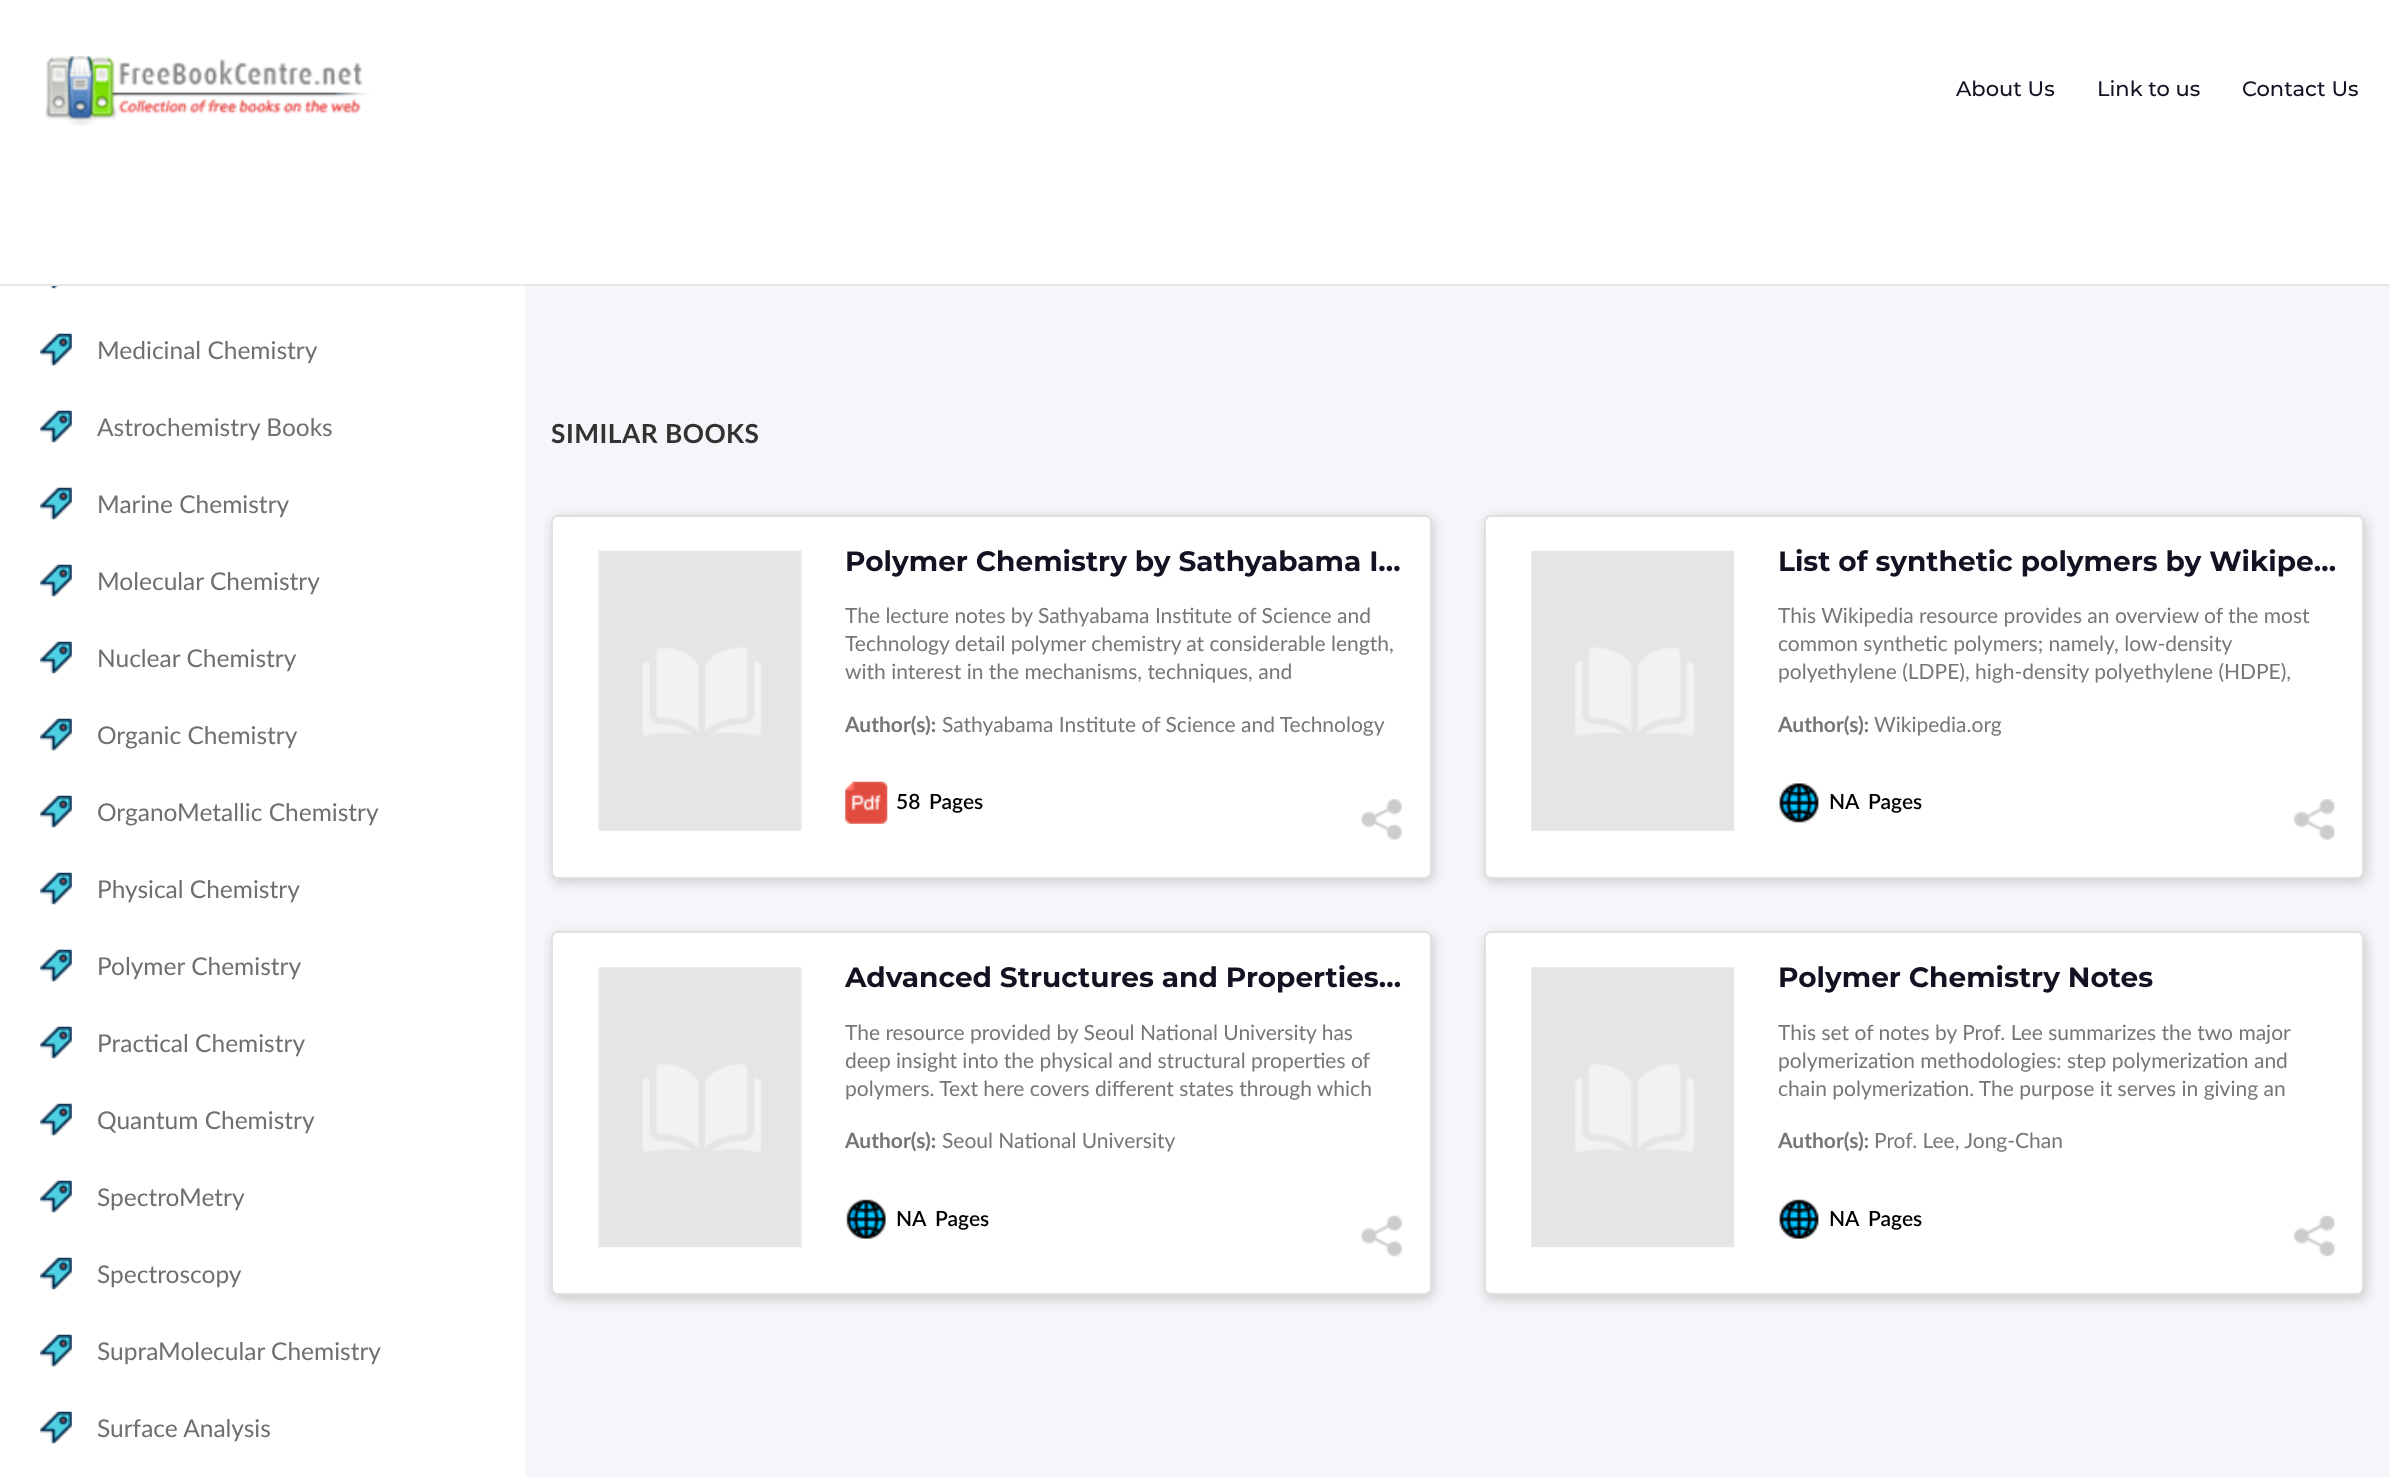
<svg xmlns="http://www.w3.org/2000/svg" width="2390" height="1477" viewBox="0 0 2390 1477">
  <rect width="100%" height="100%" fill="#f6f5f9"/>
  <path d="M0 0h2390v284H0z" fill="#fff"/>
  <path d="M0 284h2390v2H0z" fill="#e8e8e8"/>
  <image x="45" y="56" width="326" height="70" href="img/1.png"/>
  <path d="M0 286h525v1191H0z" fill="#fff"/>
  <image x="50" y="286" width="9" height="3" href="img/2.png"/>
  <image x="40" y="333" width="32" height="33" href="img/3.png"/>
  <image x="40" y="410" width="32" height="33" href="img/3.png"/>
  <image x="40" y="487" width="32" height="33" href="img/3.png"/>
  <image x="40" y="564" width="32" height="33" href="img/3.png"/>
  <image x="40" y="641" width="32" height="33" href="img/3.png"/>
  <image x="40" y="718" width="32" height="33" href="img/3.png"/>
  <image x="40" y="795" width="32" height="33" href="img/4.png"/>
  <image x="40" y="872" width="32" height="33" href="img/3.png"/>
  <image x="40" y="949" width="32" height="33" href="img/5.png"/>
  <image x="40" y="1026" width="32" height="33" href="img/3.png"/>
  <image x="40" y="1103" width="32" height="33" href="img/3.png"/>
  <image x="40" y="1180" width="32" height="33" href="img/3.png"/>
  <image x="40" y="1257" width="32" height="33" href="img/3.png"/>
  <image x="40" y="1334" width="32" height="33" href="img/3.png"/>
  <image x="40" y="1411" width="32" height="33" href="img/3.png"/>
  <rect x="553" y="518" width="880" height="364" rx="7" fill="#9d9d9d80" filter="blur(6px)"/>
  <rect x="551" y="515" width="881" height="364" rx="7" fill="#fff"/>
  <rect x="552" y="516" width="879" height="362" rx="6" fill="none" stroke="#0000001f" stroke-width="2"/>
  <image x="598" y="550" width="204" height="281" href="img/6.png"/>
  <image x="845" y="781" width="43" height="43" href="img/7.png"/>
  <image x="1361" y="799" width="41" height="41" href="img/8.png"/>
  <rect x="1486" y="518" width="880" height="364" rx="7" fill="#9d9d9d80" filter="blur(6px)"/>
  <rect x="1484" y="515" width="880" height="364" rx="7" fill="#fff"/>
  <rect x="1485" y="516" width="878" height="362" rx="6" fill="none" stroke="#0000001f" stroke-width="2"/>
  <image x="1531" y="550" width="204" height="281" href="img/9.png"/>
  <image x="1779" y="783" width="40" height="40" href="img/10.png"/>
  <image x="2294" y="799" width="41" height="41" href="img/11.png"/>
  <rect x="553" y="935" width="880" height="364" rx="7" fill="#9d9d9d80" filter="blur(6px)"/>
  <rect x="551" y="931" width="881" height="364" rx="7" fill="#fff"/>
  <rect x="552" y="932" width="879" height="362" rx="6" fill="none" stroke="#0000001f" stroke-width="2"/>
  <image x="598" y="967" width="204" height="281" href="img/12.png"/>
  <image x="846" y="1199" width="40" height="40" href="img/13.png"/>
  <image x="1361" y="1215" width="42" height="42" href="img/14.png"/>
  <rect x="1486" y="935" width="880" height="364" rx="7" fill="#9d9d9d80" filter="blur(6px)"/>
  <rect x="1484" y="931" width="880" height="364" rx="7" fill="#fff"/>
  <rect x="1485" y="932" width="878" height="362" rx="6" fill="none" stroke="#0000001f" stroke-width="2"/>
  <image x="1531" y="967" width="204" height="281" href="img/15.png"/>
  <image x="1779" y="1199" width="40" height="40" href="img/16.png"/>
  <image x="2294" y="1215" width="41" height="42" href="img/17.png"/>
  <g font-family="Montserrat" font-size="21" font-weight="500" fill="#151122">
    <text x="1956" y="96">About Us</text>
    <text x="2097" y="96">Link to us</text>
    <text x="2242" y="96">Contact Us</text>
  </g>
  <g font-family="Lato" font-size="24.5" fill="#6f6f70">
    <text x="97" y="359">Medicinal Chemistry</text>
    <text x="97" y="436">Astrochemistry Books</text>
    <text x="97" y="513">Marine Chemistry</text>
    <text x="97" y="590">Molecular Chemistry</text>
    <text x="97" y="667">Nuclear Chemistry</text>
    <text x="97" y="744">Organic Chemistry</text>
    <text x="97" y="821">OrganoMetallic Chemistry</text>
    <text x="97" y="898">Physical Chemistry</text>
    <text x="97" y="975">Polymer Chemistry</text>
    <text x="97" y="1052">Practical Chemistry</text>
    <text x="97" y="1129">Quantum Chemistry</text>
    <text x="97" y="1206">SpectroMetry</text>
    <text x="97" y="1283">Spectroscopy</text>
    <text x="97" y="1360">SupraMolecular Chemistry</text>
    <text x="97" y="1437">Surface Analysis</text>
  </g>
  <text x="551" y="443" font-family="Lato" font-size="26.25" font-weight="bold" letter-spacing="0.5" fill="#323232">SIMILAR BOOKS</text>
  <text x="845" y="571" font-family="Montserrat" font-size="28" font-weight="bold" fill="#151122">Polymer Chemistry by Sathyabama I…</text>
  <g font-family="Lato" font-size="21" fill="#767678">
    <text x="845" y="623">The lecture notes by Sathyabama Institute of Science and</text>
    <text x="845" y="651">Technology detail polymer chemistry at considerable length,</text>
    <text x="845" y="679">with interest in the mechanisms, techniques, and</text>
  </g>
  <text x="845" y="732" font-family="Lato" font-size="21" font-weight="bold" fill="#767678">Author(s):</text>
  <text x="942" y="732" font-family="Lato" font-size="21" fill="#767678">Sathyabama Institute of Science and Technology</text>
  <g font-family="Lato" font-size="21" font-weight="600" fill="#000">
    <text x="896" y="809">58</text>
    <text x="929" y="809">Pages</text>
  </g>
  <text x="1778" y="571" font-family="Montserrat" font-size="28" font-weight="bold" fill="#151122">List of synthetic polymers by Wikipe…</text>
  <g font-family="Lato" font-size="21" fill="#767678">
    <text x="1778" y="623">This Wikipedia resource provides an overview of the most</text>
    <text x="1778" y="651">common synthetic polymers; namely, low-density</text>
    <text x="1778" y="679">polyethylene (LDPE), high-density polyethylene (HDPE),</text>
  </g>
  <text x="1778" y="732" font-family="Lato" font-size="21" font-weight="bold" fill="#767678">Author(s):</text>
  <text x="1874" y="732" font-family="Lato" font-size="21" fill="#767678">Wikipedia.org</text>
  <g font-family="Lato" font-size="21" font-weight="600" fill="#000">
    <text x="1829" y="809">NA</text>
    <text x="1868" y="809">Pages</text>
  </g>
  <text x="845" y="987" font-family="Montserrat" font-size="28" font-weight="bold" fill="#151122">Advanced Structures and Properties…</text>
  <g font-family="Lato" font-size="21" fill="#767678">
    <text x="845" y="1040">The resource provided by Seoul National University has</text>
    <text x="845" y="1068">deep insight into the physical and structural properties of</text>
    <text x="845" y="1096">polymers. Text here covers different states through which</text>
  </g>
  <text x="845" y="1148" font-family="Lato" font-size="21" font-weight="bold" fill="#767678">Author(s):</text>
  <text x="942" y="1148" font-family="Lato" font-size="21" fill="#767678">Seoul National University</text>
  <g font-family="Lato" font-size="21" font-weight="600" fill="#000">
    <text x="896" y="1226">NA</text>
    <text x="935" y="1226">Pages</text>
  </g>
  <text x="1778" y="987" font-family="Montserrat" font-size="28" font-weight="bold" fill="#151122">Polymer Chemistry Notes</text>
  <g font-family="Lato" font-size="21" fill="#767678">
    <text x="1778" y="1040">This set of notes by Prof. Lee summarizes the two major</text>
    <text x="1778" y="1068">polymerization methodologies: step polymerization and</text>
    <text x="1778" y="1096">chain polymerization. The purpose it serves in giving an</text>
  </g>
  <text x="1778" y="1148" font-family="Lato" font-size="21" font-weight="bold" fill="#767678">Author(s):</text>
  <text x="1874" y="1148" font-family="Lato" font-size="21" fill="#767678">Prof. Lee, Jong-Chan</text>
  <g font-family="Lato" font-size="21" font-weight="600" fill="#000">
    <text x="1829" y="1226">NA</text>
    <text x="1868" y="1226">Pages</text>
  </g>
</svg>
